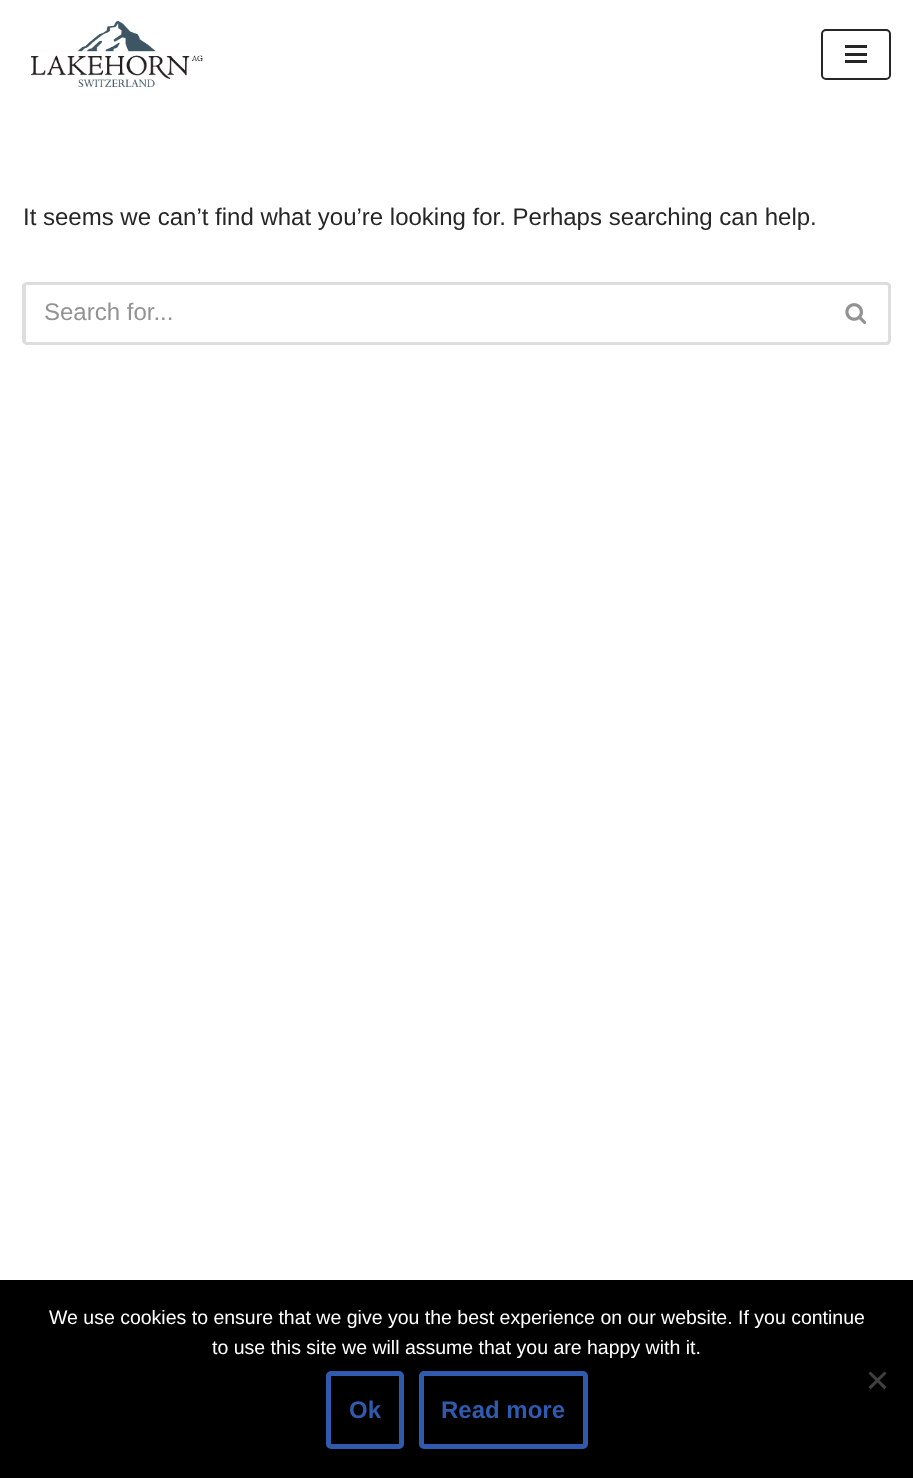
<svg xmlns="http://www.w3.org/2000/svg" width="913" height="1478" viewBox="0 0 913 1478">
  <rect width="100%" height="100%" fill="#fff"/>
  <image x="31" y="21" width="172" height="66" href="img/1.png"/>
  <rect x="822" y="30" width="68" height="49" rx="4" fill="none" stroke="#272626" stroke-width="2"/>
  <path d="M845 45h22v3H845z" fill="#272626"/>
  <path d="M845 53h22v3H845z" fill="#272626"/>
  <path d="M845 60h22v3H845z" fill="#272626"/>
  <path d="M27 282H824V345H27C25 345 22 343 22 340V286C22 284 25 282 27 282ZM27 285H824V342H27C26 342 26 341 26 340V286C26 286 26 285 27 285Z" fill="#ddd" fill-rule="evenodd"/>
  <path d="M824 282H886C889 282 891 284 891 286V340C891 343 889 345 886 345H824ZM824 285H886C887 285 888 286 888 286V340C888 341 887 342 886 342H824Z" fill="#ddd" fill-rule="evenodd"/>
  <image x="845" y="303" width="22" height="21" href="img/2.png"/>
  <path d="M0 1280h913v198H0z" fill="#000"/>
  <path d="M884.5 1371.5L886.5 1373.5L870.5 1389.5L868.5 1387Z" fill="#404040"/>
  <path d="M868.5 1373.5L870.5 1371.5L886.5 1387L884.5 1389.5Z" fill="#404040"/>
  <rect x="328.5" y="1373.5" width="73" height="73" rx="2.5" fill="none" stroke="#2f5aae" stroke-width="5"/>
  <rect x="421.5" y="1373.5" width="164" height="73" rx="2.5" fill="none" stroke="#2f5aae" stroke-width="5"/>
  <text x="23" y="225" font-family="Liberation Sans" font-size="24" fill="#272626">It seems we can’t find what you’re looking for. Perhaps searching can help.</text>
  <text x="44" y="320" font-family="Liberation Sans" font-size="24" fill="#939393">Search for...</text>
  <g font-family="Liberation Sans" font-size="19.5" fill="#fff">
    <text x="49" y="1324">We use cookies to ensure that we give you the best experience on our website. If you continue</text>
    <text x="212" y="1354">to use this site we will assume that you are happy with it.</text>
  </g>
  <g font-family="Liberation Sans" font-size="24" font-weight="bold" fill="#2f5aae">
    <text x="349" y="1418">Ok</text>
    <text x="441" y="1418">Read more</text>
  </g>
</svg>
